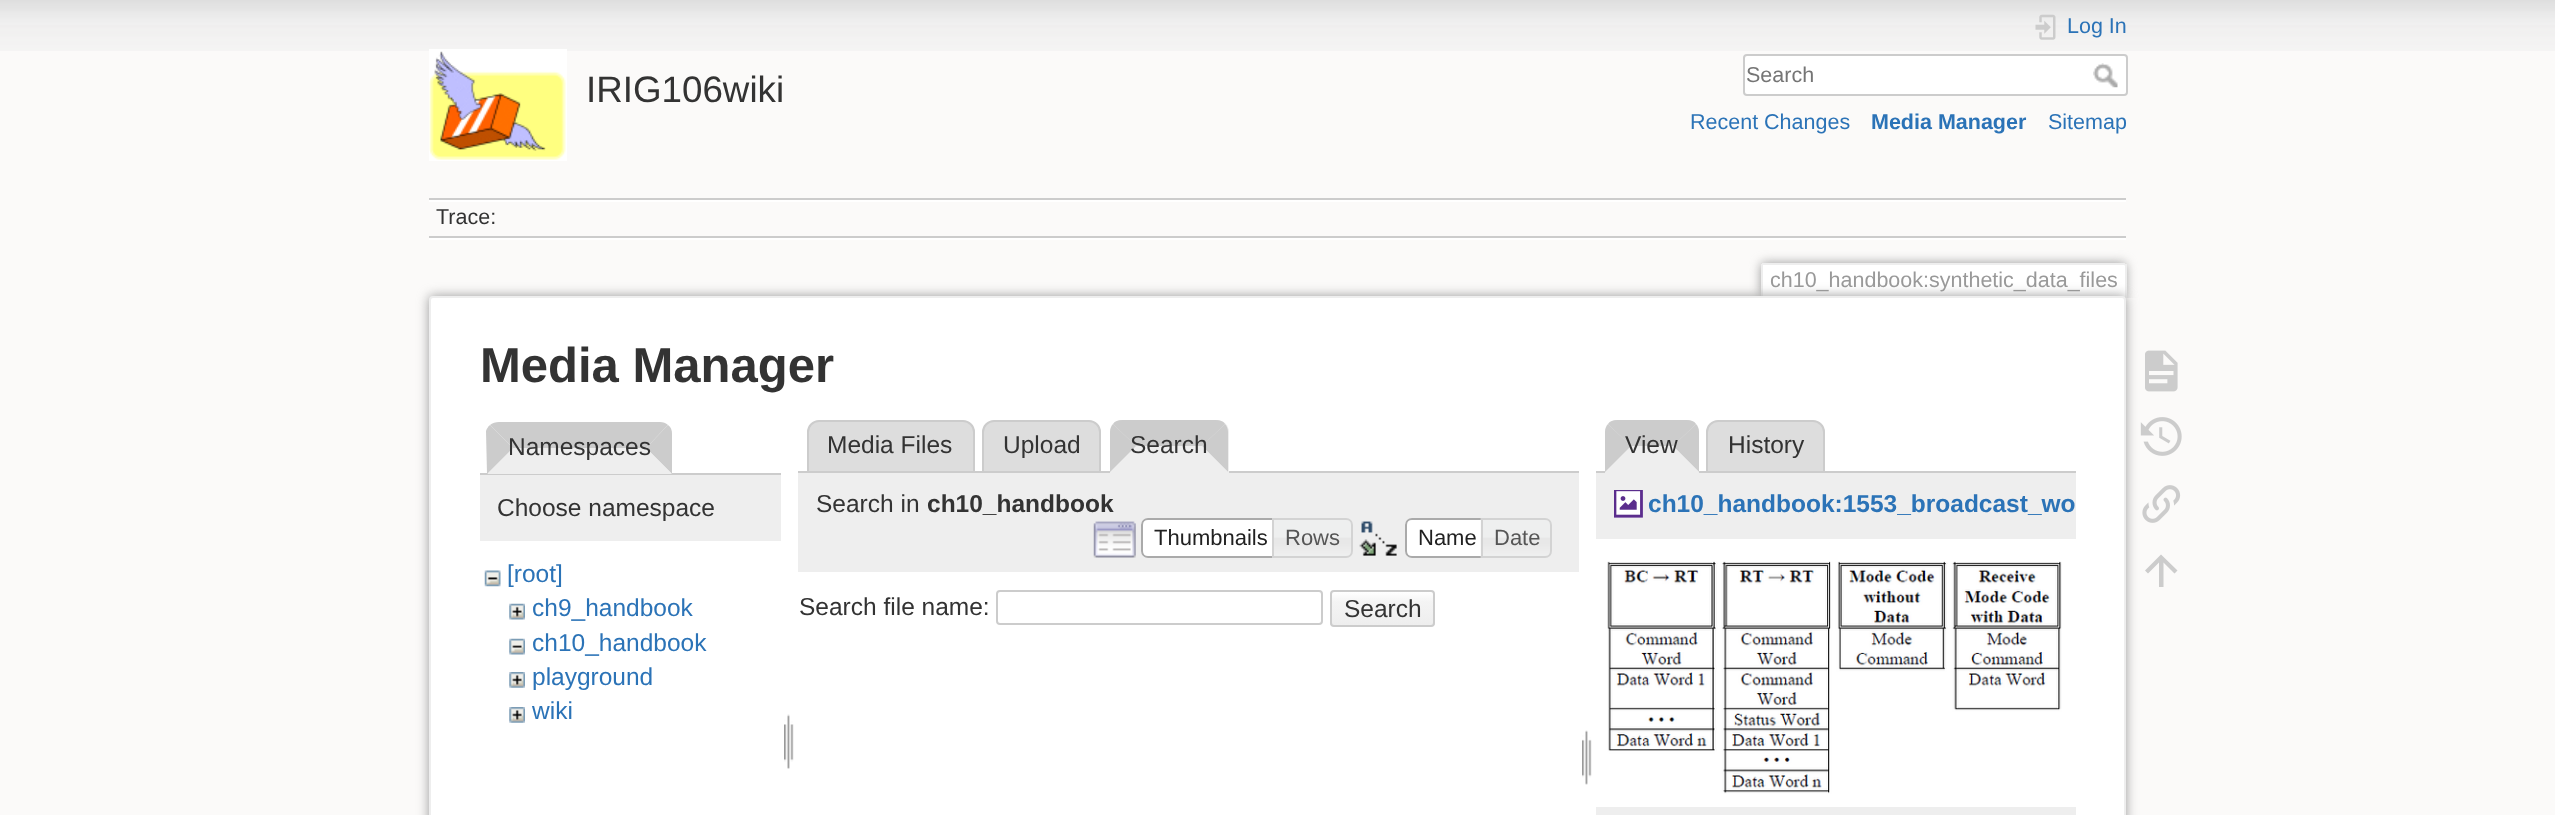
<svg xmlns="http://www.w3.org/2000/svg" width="2555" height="815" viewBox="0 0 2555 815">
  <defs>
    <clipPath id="clip1"><path d="M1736 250h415v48H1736z"/></clipPath>
    <clipPath id="clip2"><rect x="1330" y="590" width="105" height="37" rx="4"/></clipPath>
    <linearGradient id="g1" gradientUnits="userSpaceOnUse" x1="1383" y1="592" x2="1383" y2="625"><stop offset="0" stop-color="#fff"/><stop offset="0.3" stop-color="#f4f4f4"/><stop offset="0.99" stop-color="#eee"/><stop offset="0.99" stop-color="#ccc"/></linearGradient>
  </defs>
  <rect width="100%" height="100%" fill="#fbfaf9"/>
  <image x="0" y="0" width="2555" height="51" href="img/1.png"/>
  <image x="429" y="49" width="138" height="112" href="img/2.png"/>
  <image x="2035" y="14" width="21" height="26" href="img/3.png"/>
  <rect x="1744" y="55" width="383" height="40" rx="3" fill="#fff" stroke="#ccc" stroke-width="2"/>
  <image x="2093" y="63" width="25" height="25" href="img/4.png"/>
  <path d="M429 198h1697v2H429z" fill="#ccc"/>
  <path d="M429 238h1697v2H429z" fill="#fff"/>
  <path d="M429 200h1697v2H429z" fill="#fff"/>
  <path d="M429 236h1697v2H429z" fill="#ccc"/>
  <g clip-path="url(#clip1)">
    <rect x="1761" y="263" width="365" height="35" rx="4" fill="#999" filter="blur(5.5px)"/>
  </g>
  <path d="M1764 264H2123C2124 264 2125 265 2125 266V298H1762V266C1762 265 1763 264 1764 264Z" fill="#fff"/>
  <path d="M1762 263h363v2H1762z" fill="#eee"/>
  <path d="M2125 264h2v34H2125z" fill="#eee"/>
  <path d="M1761 264h2v34H1761z" fill="#eee"/>
  <rect x="429" y="296" width="1697" height="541" rx="4" fill="#999" filter="blur(6px)"/>
  <rect x="430" y="297" width="1695" height="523" rx="3" fill="#fff" stroke="#eee" stroke-width="2"/>
  <path d="M499 422C496 422 492 423 490 425L513 448H646L668 425C666 423 663 422 660 422Z" fill="#ccc"/>
  <path d="M480 473h301v2H480z" fill="#ccc"/>
  <path d="M672 474L646 448L668 425C671 427 672 430 672 434Z" fill="#ccc"/>
  <path d="M672 474L646 448H513L487 474Z" fill="#eee"/>
  <path d="M486 431C487 428 488 427 490 425L513 448L487 474Z" fill="#ccc"/>
  <path d="M480 475h301v66H480z" fill="#eee"/>
  <image x="484" y="570" width="17" height="17" href="img/5.png"/>
  <image x="509" y="603" width="16" height="17" href="img/6.png"/>
  <image x="509" y="638" width="16" height="17" href="img/7.png"/>
  <image x="509" y="672" width="16" height="16" href="img/8.png"/>
  <image x="509" y="707" width="16" height="16" href="img/8.png"/>
  <image x="784" y="714" width="10" height="55" href="img/9.png"/>
  <path d="M819 421H963C969 421 974 426 974 432V472H808V432C808 426 813 421 819 421Z" fill="#ddd" stroke="#ccc" stroke-width="2"/>
  <path d="M994 421H1089C1095 421 1100 426 1100 432V472H983V432C983 426 988 421 994 421Z" fill="#ddd" stroke="#ccc" stroke-width="2"/>
  <path d="M798 471h781v2H798z" fill="#ccc"/>
  <path d="M1122 420H1217C1223.5 420 1229 425.5 1229 432V473H1110V432C1110 425.5 1115.5 420 1122 420Z" fill="#eee"/>
  <path d="M1122 420H1216C1220 420 1223 421 1225 424L1202 446H1136L1113 424C1115 421 1118 420 1122 420Z" fill="#ccc"/>
  <path d="M1225 424L1202 446L1228 472V432C1228 429 1227 426 1225 424Z" fill="#ccc"/>
  <path d="M1228 472L1202 446H1136L1110 472Z" fill="#eee"/>
  <path d="M1113 424C1111 426 1110 429 1110 432V472L1136 446Z" fill="#ccc"/>
  <path d="M798 473h781v99H798z" fill="#eee"/>
  <image x="1093" y="521" width="43" height="37" href="img/10.png"/>
  <path d="M1148 518H1281V558H1148C1144 558 1141 555 1141 551V525C1141 521 1144 518 1148 518Z" fill="#fff"/>
  <image x="1141" y="518" width="5" height="40" href="img/11.png"/>
  <path d="M1148 519H1280V557H1148C1144.5 557 1142 554.5 1142 551V525C1142 521.5 1144.5 519 1148 519Z" fill="none" stroke="#aaa" stroke-width="2"/>
  <image x="1274" y="518" width="79" height="40" href="img/12.png"/>
  <path d="M1273 519H1346C1349.5 519 1352 521.5 1352 525V551C1352 554.5 1349.5 557 1346 557H1273Z" fill="none" stroke="#d3d3d3" stroke-width="2"/>
  <image x="1359" y="521" width="38" height="35" href="img/13.png"/>
  <path d="M1412 518H1489V558H1412C1408 558 1405 555 1405 551V525C1405 521 1408 518 1412 518Z" fill="#fff"/>
  <image x="1407" y="556" width="3" height="2" href="img/14.png"/>
  <path d="M1412 519H1488V557H1412C1408.5 557 1406 554.5 1406 551V525C1406 521.5 1408.5 519 1412 519Z" fill="none" stroke="#aaa" stroke-width="2"/>
  <image x="1480" y="518" width="72" height="40" href="img/15.png"/>
  <path d="M1482 519H1545C1548.5 519 1551 521.5 1551 525V551C1551 554.5 1548.5 557 1545 557H1482Z" fill="none" stroke="#d3d3d3" stroke-width="2"/>
  <rect x="997" y="591" width="325" height="33" rx="3" fill="none" stroke="#ccc" stroke-width="2"/>
  <g clip-path="url(#clip2)">
    <path d="M1330 592h105v33H1330z" fill="url(#g1)"/>
  </g>
  <rect x="1331" y="591" width="103" height="35" rx="3" fill="none" stroke="#ccc" stroke-width="2"/>
  <image x="1582" y="730" width="10" height="55" href="img/16.png"/>
  <path d="M1718 421H1813C1819 421 1824 426 1824 432V472H1707V432C1707 426 1712 421 1718 421Z" fill="#ddd" stroke="#ccc" stroke-width="2"/>
  <path d="M1596 471h480v2H1596z" fill="#ccc"/>
  <path d="M1617 420H1687C1693.5 420 1699 425.5 1699 432V473H1605V432C1605 425.5 1610.5 420 1617 420Z" fill="#eee"/>
  <path d="M1617 420H1687C1691 420 1694 421 1696 424L1673 446H1631L1608 424C1610 421 1613 420 1617 420Z" fill="#ccc"/>
  <path d="M1696 424L1673 446L1699 472V432C1699 429 1698 426 1696 424Z" fill="#ccc"/>
  <path d="M1699 472L1673 446H1631L1605 472Z" fill="#eee"/>
  <path d="M1608 424C1606 426 1605 429 1605 432V472L1631 446Z" fill="#ccc"/>
  <path d="M1596 473h480v66H1596z" fill="#eee"/>
  <image x="1614" y="490" width="29" height="28" href="img/17.png"/>
  <image x="1607" y="561" width="455" height="233" href="img/18.png"/>
  <path d="M1596 807h480v8H1596z" fill="#eee"/>
  <image x="2145" y="350" width="33" height="42" href="img/19.png"/>
  <image x="2140" y="417" width="42" height="39" href="img/20.png"/>
  <image x="2142" y="485" width="39" height="38" href="img/21.png"/>
  <path d="M2163.5 587H2159V562.5L2148 573.5L2145 570.5L2161 554.5L2177.5 570.5L2174.5 573.5L2163.5 562.5Z" fill="#ccc"/>
  <text x="586" y="102" font-family="Liberation Sans" font-size="36.75" fill="#333">IRIG106wiki</text>
  <text x="2067" y="33" font-family="Liberation Sans" font-size="21.5" fill="#2b73b7">Log In</text>
  <text x="1746" y="82" font-family="Liberation Sans" font-size="21.5" fill="#757575">Search</text>
  <text x="1690" y="129" font-family="Liberation Sans" font-size="21.5" fill="#2b73b7">Recent Changes</text>
  <text x="1871" y="129" font-family="Liberation Sans" font-size="21.5" font-weight="bold" fill="#2b73b7">Media Manager</text>
  <text x="2048" y="129" font-family="Liberation Sans" font-size="21.5" fill="#2b73b7">Sitemap</text>
  <text x="436" y="224" font-family="Liberation Sans" font-size="21.5" fill="#333">Trace:</text>
  <text x="1770" y="287" font-family="Liberation Sans" font-size="21.5" fill="#999">ch10_handbook:synthetic_data_files</text>
  <text x="480" y="382" font-family="Liberation Sans" font-size="49" font-weight="bold" fill="#333">Media Manager</text>
  <g font-family="Liberation Sans" font-size="24.5" fill="#333">
    <text x="508" y="455">Namespaces</text>
    <text x="497" y="516">Choose namespace</text>
  </g>
  <g font-family="Liberation Sans" font-size="24.5" fill="#2b73b7">
    <text x="507" y="582">[root]</text>
    <text x="532" y="616">ch9_handbook</text>
    <text x="532" y="651">ch10_handbook</text>
    <text x="532" y="685">playground</text>
    <text x="532" y="719">wiki</text>
  </g>
  <g font-family="Liberation Sans" font-size="24.5" fill="#333">
    <text x="827" y="453">Media Files</text>
    <text x="1003" y="453">Upload</text>
    <text x="1130" y="453">Search</text>
    <text x="816" y="512">Search in</text>
  </g>
  <text x="927" y="512" font-family="Liberation Sans" font-size="24.5" font-weight="bold" fill="#333">ch10_handbook</text>
  <text x="1154" y="545" font-family="Liberation Sans" font-size="22" fill="#212121">Thumbnails</text>
  <text x="1285" y="545" font-family="Liberation Sans" font-size="22" fill="#555">Rows</text>
  <text x="1418" y="545" font-family="Liberation Sans" font-size="22" fill="#212121">Name</text>
  <text x="1494" y="545" font-family="Liberation Sans" font-size="22" fill="#555">Date</text>
  <g font-family="Liberation Sans" font-size="24.5" fill="#333">
    <text x="799" y="615">Search file name:</text>
    <text x="1344" y="617">Search</text>
    <text x="1625" y="453">View</text>
    <text x="1728" y="453">History</text>
  </g>
  <text x="1648" y="512" font-family="Liberation Sans" font-size="24.5" font-weight="bold" fill="#2b73b7">ch10_handbook:1553_broadcast_wo</text>
</svg>
